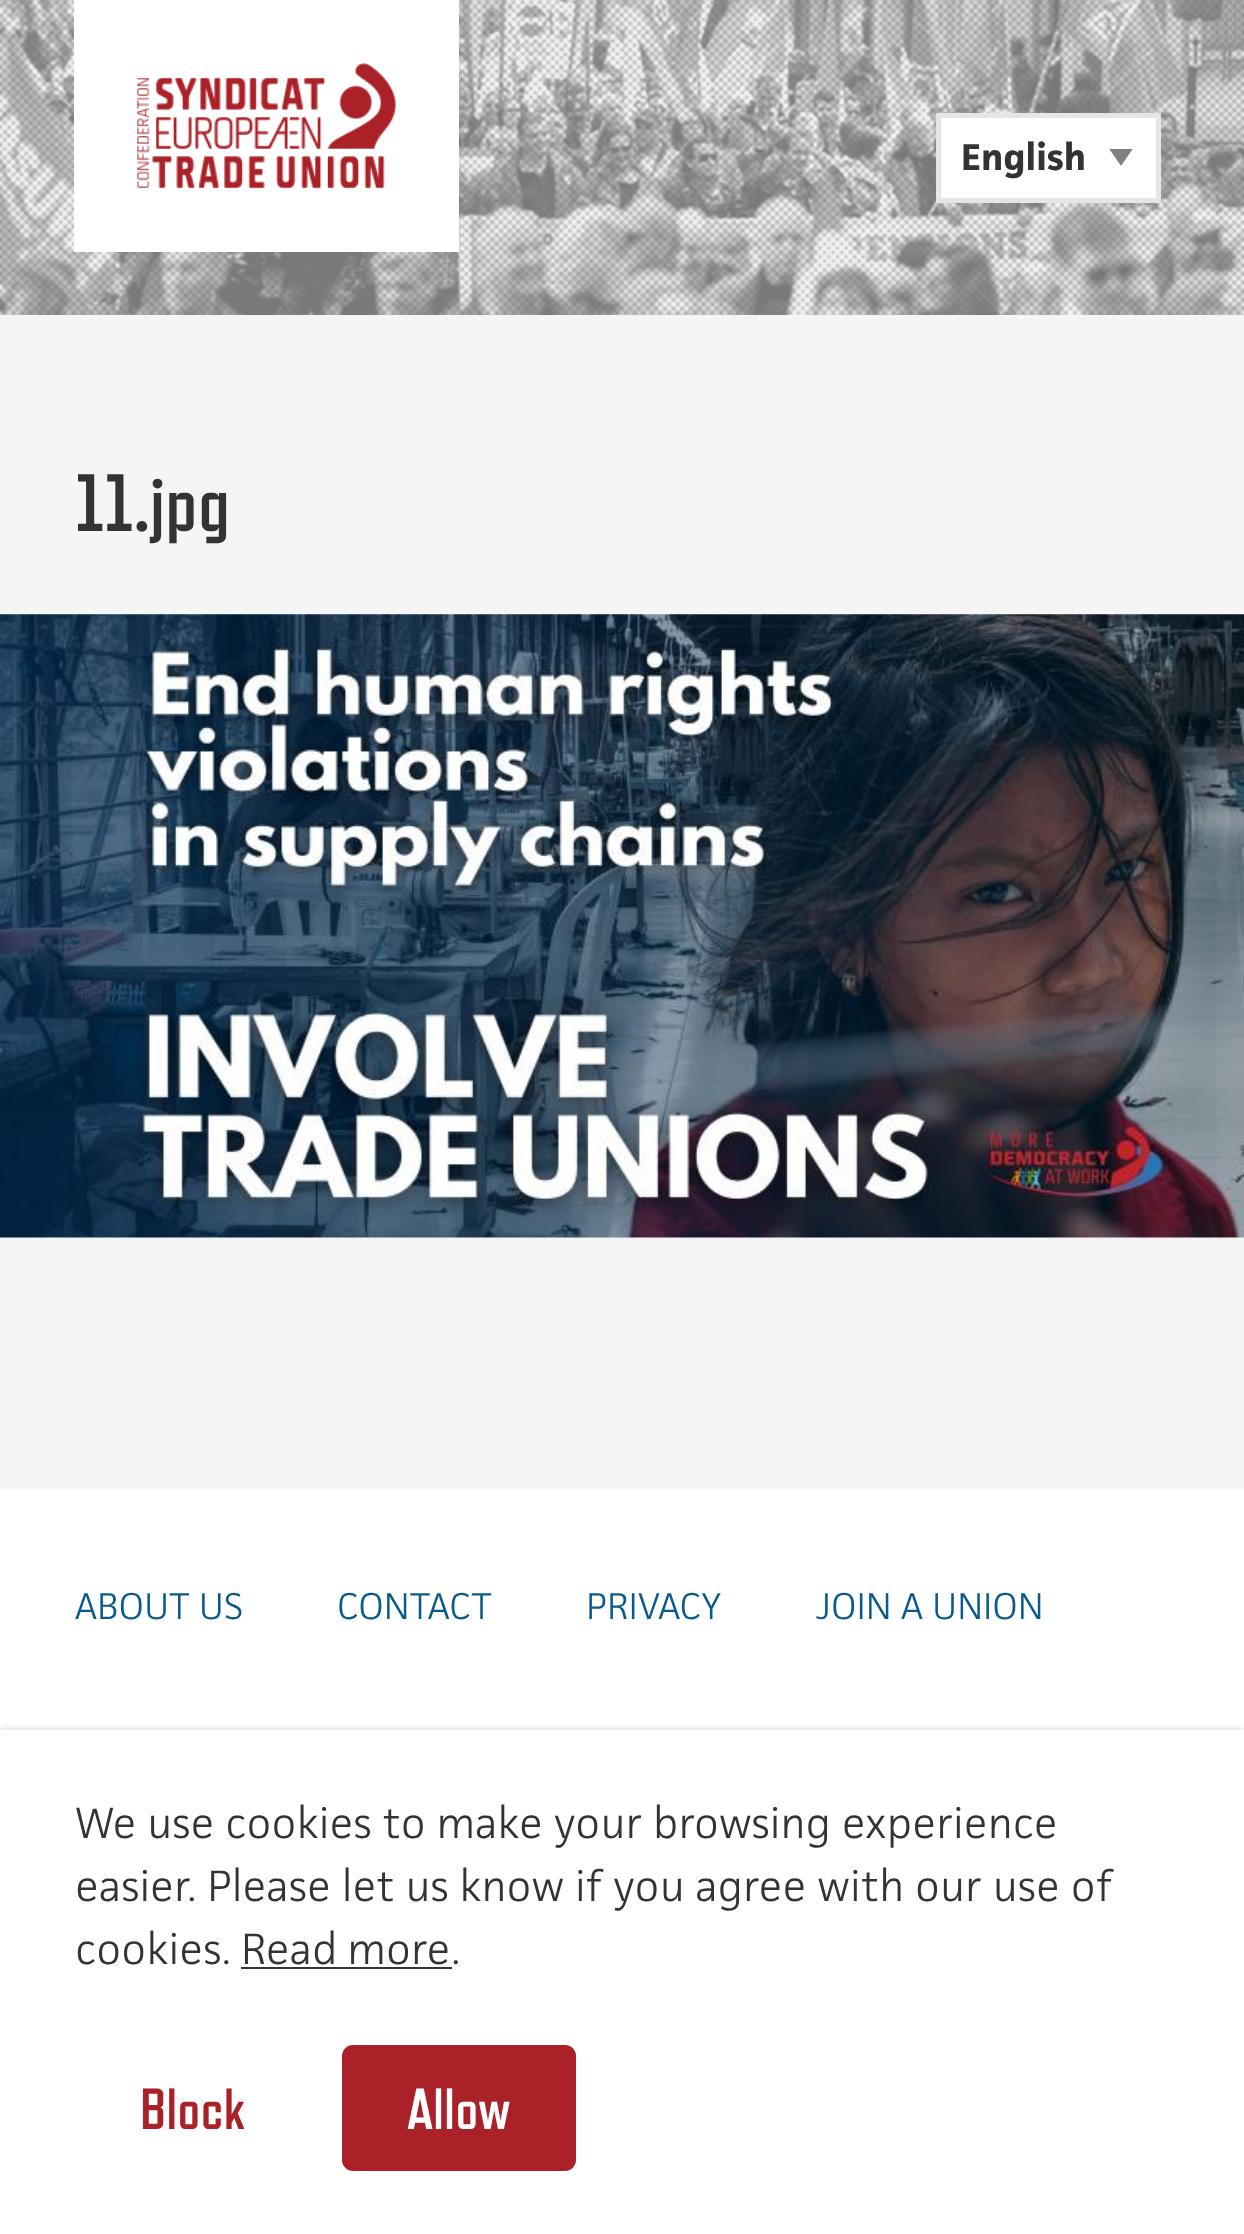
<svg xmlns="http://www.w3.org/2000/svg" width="1244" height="2234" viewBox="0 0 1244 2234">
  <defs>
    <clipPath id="clip1"><path d="M1109 149h25v18H1109z"/></clipPath>
  </defs>
  <rect width="100%" height="100%" fill="#f5f5f5"/>
  <image x="0" y="0" width="1244" height="315" href="img/1.png"/>
  <path d="M74 0h385v252H74z" fill="#fff"/>
  <image x="137" y="63" width="259" height="126" href="img/2.png"/>
  <path d="M938.5 115.5h220v85H938.5z" fill="#fff" stroke="#e6e6e6" stroke-width="5"/>
  <g clip-path="url(#clip1)">
    <path d="M1109 148.5H1133L1121 166Z" fill="#808080"/>
  </g>
  <image x="0" y="614" width="1244" height="624" href="img/3.png"/>
  <path d="M0 1490h1244v240H0z" fill="#fff"/>
  <path d="M0 1730h1244v504H0z" fill="#33333340" filter="blur(3.5px)"/>
  <path d="M0 1730h1244v504H0z" fill="#fff"/>
  <path d="M241 1967h211v2H241z" fill="#333"/>
  <rect x="342" y="2045" width="234" height="126" rx="11" fill="#ab2128"/>
  <text x="961" y="170" font-family="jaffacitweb" font-size="34.5" font-weight="bold" fill="#333">English</text>
  <text x="75" y="531" font-family="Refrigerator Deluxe" font-size="81" font-weight="bold" fill="#333">11.jpg</text>
  <g font-family="jaffacitweb" font-size="34.5" fill="#095a8c">
    <text x="75" y="1619">ABOUT US</text>
    <text x="337" y="1619">CONTACT</text>
    <text x="586" y="1619">PRIVACY</text>
    <text x="815" y="1619">JOIN A UNION</text>
  </g>
  <g font-family="jaffacitweb" font-size="40.5" fill="#333">
    <text x="75" y="1838">We use cookies to make your browsing experience</text>
    <text x="75" y="1901">easier. Please let us know if you agree with our use of</text>
    <text x="75" y="1964">cookies.</text>
    <text x="241" y="1964" word-spacing="-1">Read more</text>
    <text x="451" y="1964">.</text>
  </g>
  <text x="140" y="2129" font-family="Refrigerator Deluxe" font-size="58" font-weight="bold" fill="#ab2128">Block</text>
  <text x="407" y="2129" font-family="Refrigerator Deluxe" font-size="58" font-weight="bold" fill="#fff">Allow</text>
</svg>
